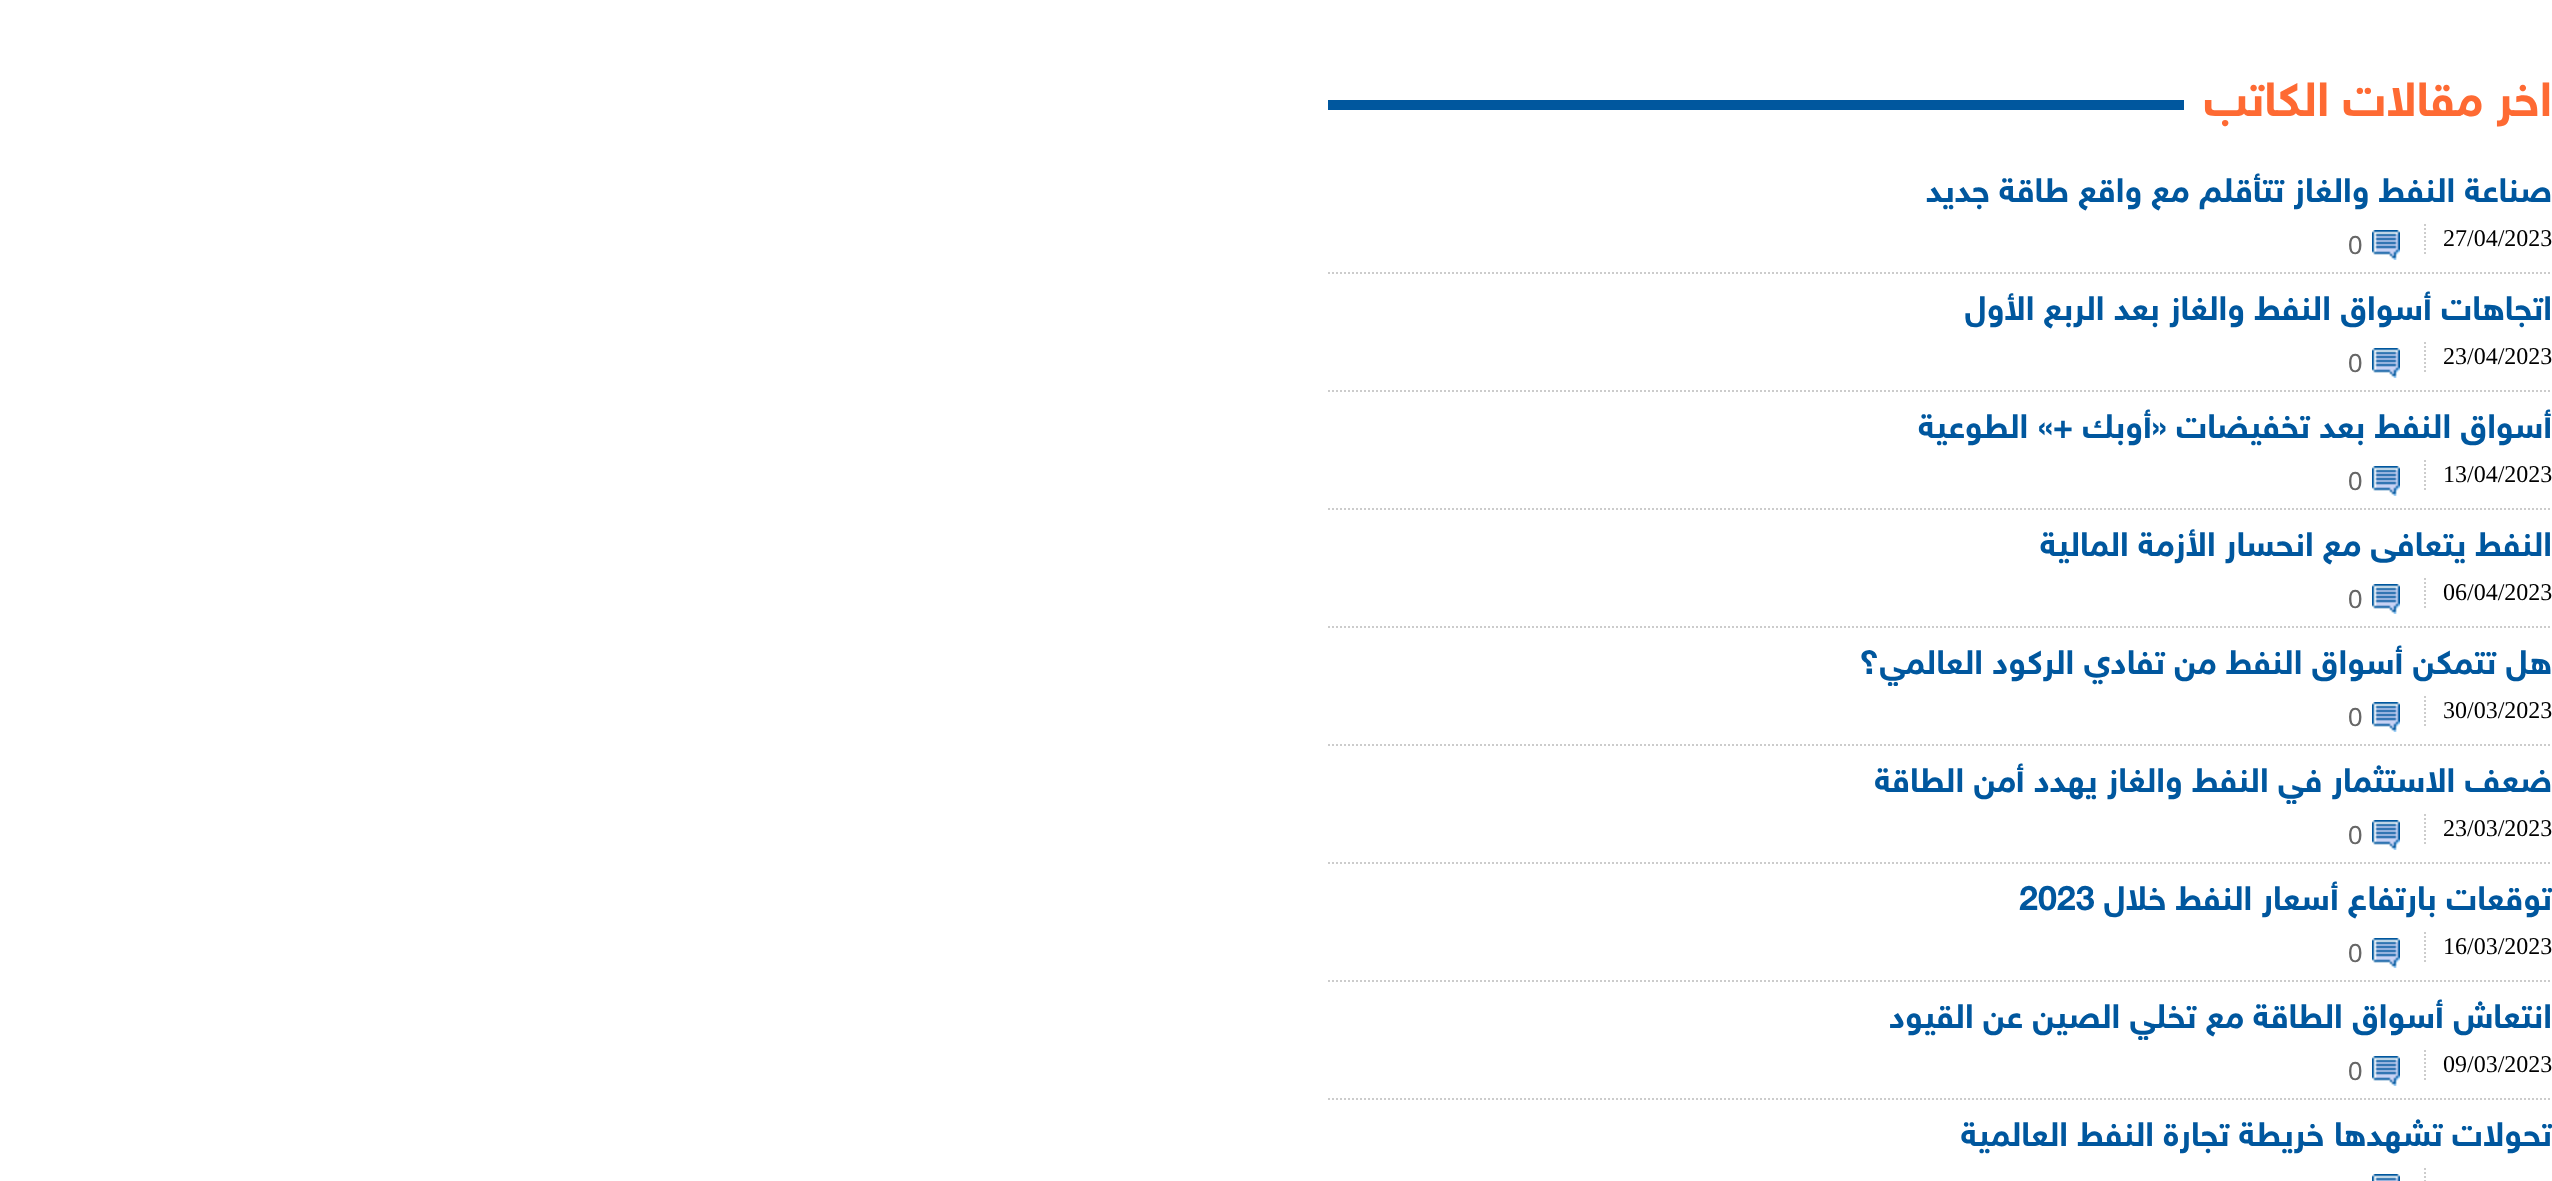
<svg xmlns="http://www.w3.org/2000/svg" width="2552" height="1181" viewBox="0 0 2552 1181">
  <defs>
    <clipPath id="clip1"><path d="M1328 636h1224v50H1328z"/></clipPath>
    <clipPath id="clip2"><path d="M1328 754h1224v50H1328z"/></clipPath>
    <clipPath id="clip3"><path d="M1328 990h1224v50H1328z"/></clipPath>
  </defs>
  <rect width="100%" height="100%" fill="#fff"/>
  <path d="M1328 100h856v10H1328z" fill="#00579e"/>
  <path d="M1328 273H2552" fill="none" stroke="#ccc" stroke-width="2" stroke-dasharray="2 2"/>
  <path d="M2425 224V254" fill="none" stroke="#ccc" stroke-width="2" stroke-dasharray="2 2"/>
  <image x="2372" y="230" width="28" height="30" href="img/1.png"/>
  <path d="M1328 391H2552" fill="none" stroke="#ccc" stroke-width="2" stroke-dasharray="2 2"/>
  <path d="M2425 342V372" fill="none" stroke="#ccc" stroke-width="2" stroke-dasharray="2 2"/>
  <image x="2372" y="348" width="28" height="30" href="img/1.png"/>
  <path d="M1328 509H2552" fill="none" stroke="#ccc" stroke-width="2" stroke-dasharray="2 2"/>
  <path d="M2425 460V490" fill="none" stroke="#ccc" stroke-width="2" stroke-dasharray="2 2"/>
  <image x="2372" y="466" width="28" height="30" href="img/1.png"/>
  <path d="M1328 627H2552" fill="none" stroke="#ccc" stroke-width="2" stroke-dasharray="2 2"/>
  <path d="M2425 578V608" fill="none" stroke="#ccc" stroke-width="2" stroke-dasharray="2 2"/>
  <image x="2372" y="584" width="28" height="30" href="img/1.png"/>
  <path d="M1328 745H2552" fill="none" stroke="#ccc" stroke-width="2" stroke-dasharray="2 2"/>
  <path d="M2425 696V726" fill="none" stroke="#ccc" stroke-width="2" stroke-dasharray="2 2"/>
  <image x="2372" y="702" width="28" height="30" href="img/1.png"/>
  <path d="M1328 863H2552" fill="none" stroke="#ccc" stroke-width="2" stroke-dasharray="2 2"/>
  <path d="M2425 814V844" fill="none" stroke="#ccc" stroke-width="2" stroke-dasharray="2 2"/>
  <image x="2372" y="820" width="28" height="30" href="img/1.png"/>
  <path d="M1328 981H2552" fill="none" stroke="#ccc" stroke-width="2" stroke-dasharray="2 2"/>
  <path d="M2425 932V962" fill="none" stroke="#ccc" stroke-width="2" stroke-dasharray="2 2"/>
  <image x="2372" y="938" width="28" height="30" href="img/1.png"/>
  <path d="M1328 1099H2552" fill="none" stroke="#ccc" stroke-width="2" stroke-dasharray="2 2"/>
  <path d="M2425 1050V1080" fill="none" stroke="#ccc" stroke-width="2" stroke-dasharray="2 2"/>
  <image x="2372" y="1056" width="28" height="30" href="img/1.png"/>
  <path d="M2425 1168V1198" fill="none" stroke="#ccc" stroke-width="2" stroke-dasharray="2 2"/>
  <image x="2372" y="1174" width="28" height="7" href="img/2.png"/>
  <text x="2552" y="116" font-family="'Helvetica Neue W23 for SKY'" font-size="48" font-weight="bold" direction="rtl" fill="#fe6a33">اخر مقالات الكاتب</text>
  <text x="2552" y="202" font-family="'Helvetica Neue W23 for SKY'" font-size="34" font-weight="bold" direction="rtl" fill="#00579e">صناعة النفط والغاز تتأقلم مع واقع طاقة جديد</text>
  <text x="2443" y="246" font-family="Liberation Serif" font-size="24" fill="#000">27/04/2023</text>
  <text x="2348" y="254" font-family="Liberation Sans" font-size="26" fill="#666">0</text>
  <text x="2552" y="320" font-family="'Helvetica Neue W23 for SKY'" font-size="34" font-weight="bold" direction="rtl" fill="#00579e">اتجاهات أسواق النفط والغاز بعد الربع الأول</text>
  <text x="2443" y="364" font-family="Liberation Serif" font-size="24" fill="#000">23/04/2023</text>
  <text x="2348" y="372" font-family="Liberation Sans" font-size="26" fill="#666">0</text>
  <text x="2552" y="438" font-family="'Helvetica Neue W23 for SKY'" font-size="34" font-weight="bold" direction="rtl" fill="#00579e">أسواق النفط بعد تخفيضات «أوبك +» الطوعية</text>
  <text x="2443" y="482" font-family="Liberation Serif" font-size="24" fill="#000">13/04/2023</text>
  <text x="2348" y="490" font-family="Liberation Sans" font-size="26" fill="#666">0</text>
  <text x="2552" y="556" font-family="'Helvetica Neue W23 for SKY'" font-size="34" font-weight="bold" direction="rtl" fill="#00579e">النفط يتعافى مع انحسار الأزمة المالية</text>
  <text x="2443" y="600" font-family="Liberation Serif" font-size="24" fill="#000">06/04/2023</text>
  <text x="2348" y="608" font-family="Liberation Sans" font-size="26" fill="#666">0</text>
  <g clip-path="url(#clip1)">
    <text x="2552" y="674" font-family="'Helvetica Neue W23 for SKY'" font-size="34" font-weight="bold" direction="rtl" fill="#00579e">هل تتمكن أسواق النفط من تفادي الركود العالمي؟</text>
  </g>
  <text x="2443" y="718" font-family="Liberation Serif" font-size="24" fill="#000">30/03/2023</text>
  <text x="2348" y="726" font-family="Liberation Sans" font-size="26" fill="#666">0</text>
  <g clip-path="url(#clip2)">
    <text x="2552" y="792" font-family="'Helvetica Neue W23 for SKY'" font-size="34" font-weight="bold" direction="rtl" fill="#00579e">ضعف الاستثمار في النفط والغاز يهدد أمن الطاقة</text>
  </g>
  <text x="2443" y="836" font-family="Liberation Serif" font-size="24" fill="#000">23/03/2023</text>
  <text x="2348" y="844" font-family="Liberation Sans" font-size="26" fill="#666">0</text>
  <text x="2552" y="910" font-family="'Helvetica Neue W23 for SKY'" font-size="34" font-weight="bold" direction="rtl" fill="#00579e">توقعات بارتفاع أسعار النفط خلال</text>
  <text x="2019" y="910" font-family="'Helvetica Neue W23 for SKY'" font-size="34" font-weight="bold" fill="#00579e">2023</text>
  <text x="2443" y="954" font-family="Liberation Serif" font-size="24" fill="#000">16/03/2023</text>
  <text x="2348" y="962" font-family="Liberation Sans" font-size="26" fill="#666">0</text>
  <g clip-path="url(#clip3)">
    <text x="2552" y="1028" font-family="'Helvetica Neue W23 for SKY'" font-size="34" font-weight="bold" direction="rtl" fill="#00579e">انتعاش أسواق الطاقة مع تخلي الصين عن القيود</text>
  </g>
  <text x="2443" y="1072" font-family="Liberation Serif" font-size="24" fill="#000">09/03/2023</text>
  <text x="2348" y="1080" font-family="Liberation Sans" font-size="26" fill="#666">0</text>
  <text x="2552" y="1146" font-family="'Helvetica Neue W23 for SKY'" font-size="34" font-weight="bold" direction="rtl" fill="#00579e">تحولات تشهدها خريطة تجارة النفط العالمية</text>
</svg>
